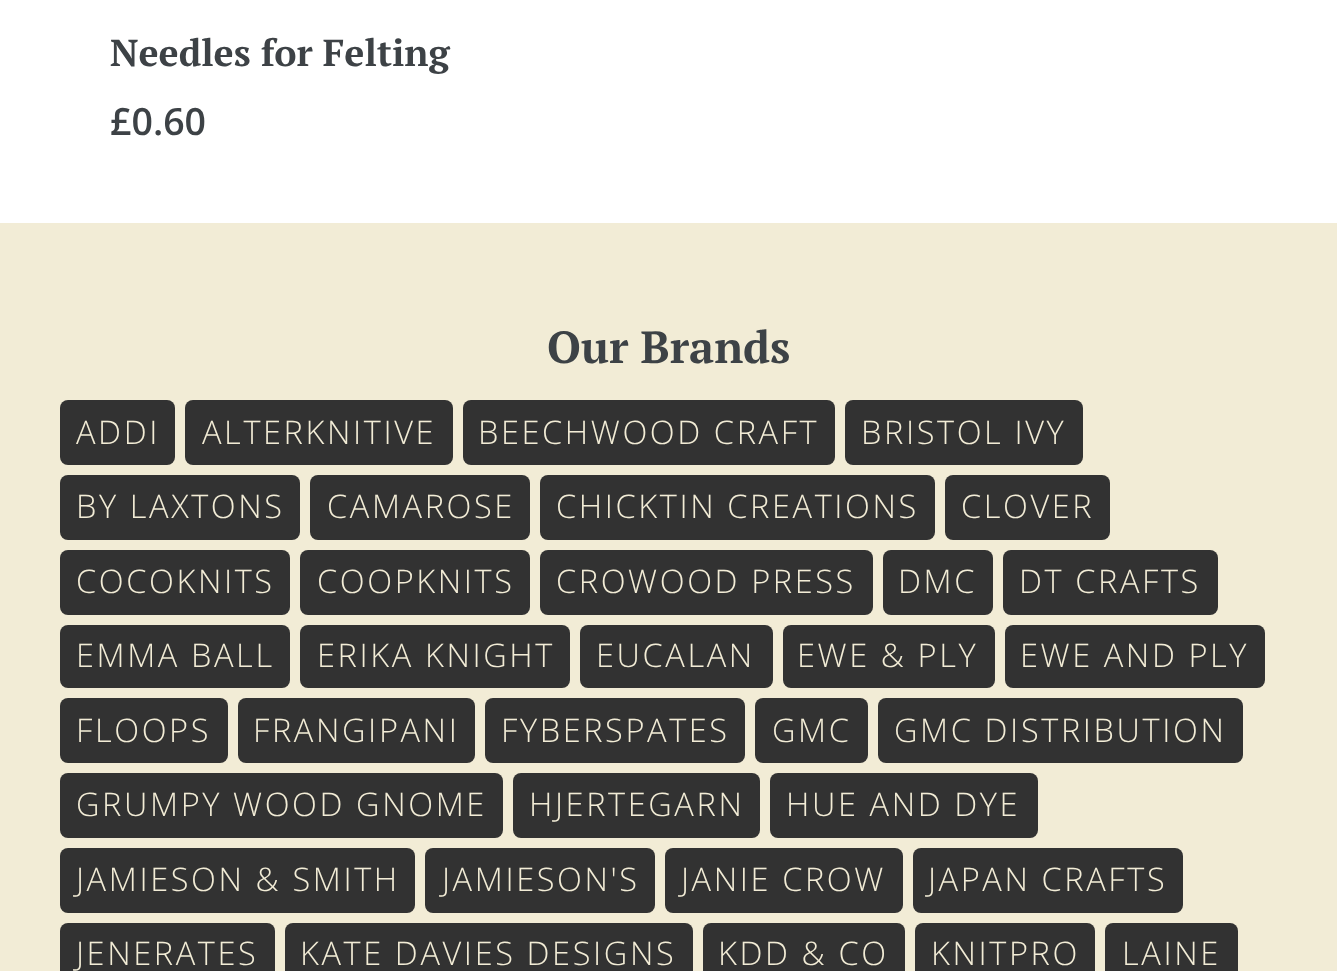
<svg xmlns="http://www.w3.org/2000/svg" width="1337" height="971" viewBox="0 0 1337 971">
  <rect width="100%" height="100%" fill="#fff"/>
  <path d="M0 223h1337v748H0z" fill="#f2ecd6"/>
  <rect x="60" y="400" width="115" height="65" rx="8" fill="#323232"/>
  <rect x="185" y="400" width="268" height="65" rx="8" fill="#323232"/>
  <rect x="463" y="400" width="372" height="65" rx="8" fill="#323232"/>
  <rect x="845" y="400" width="238" height="65" rx="8" fill="#323232"/>
  <rect x="60" y="475" width="240" height="65" rx="8" fill="#323232"/>
  <rect x="310" y="475" width="220" height="65" rx="8" fill="#323232"/>
  <rect x="540" y="475" width="395" height="65" rx="8" fill="#323232"/>
  <rect x="945" y="475" width="165" height="65" rx="8" fill="#323232"/>
  <rect x="60" y="550" width="230" height="65" rx="8" fill="#323232"/>
  <rect x="300" y="550" width="230" height="65" rx="8" fill="#323232"/>
  <rect x="540" y="550" width="333" height="65" rx="8" fill="#323232"/>
  <rect x="883" y="550" width="110" height="65" rx="8" fill="#323232"/>
  <rect x="1003" y="550" width="215" height="65" rx="8" fill="#323232"/>
  <rect x="60" y="625" width="230" height="63" rx="8" fill="#323232"/>
  <rect x="300" y="625" width="270" height="63" rx="8" fill="#323232"/>
  <rect x="580" y="625" width="193" height="63" rx="8" fill="#323232"/>
  <rect x="783" y="625" width="212" height="63" rx="8" fill="#323232"/>
  <rect x="1005" y="625" width="260" height="63" rx="8" fill="#323232"/>
  <rect x="60" y="698" width="168" height="65" rx="8" fill="#323232"/>
  <rect x="238" y="698" width="237" height="65" rx="8" fill="#323232"/>
  <rect x="485" y="698" width="260" height="65" rx="8" fill="#323232"/>
  <rect x="755" y="698" width="113" height="65" rx="8" fill="#323232"/>
  <rect x="878" y="698" width="365" height="65" rx="8" fill="#323232"/>
  <rect x="60" y="773" width="443" height="65" rx="8" fill="#323232"/>
  <rect x="513" y="773" width="247" height="65" rx="8" fill="#323232"/>
  <rect x="770" y="773" width="268" height="65" rx="8" fill="#323232"/>
  <rect x="60" y="848" width="355" height="65" rx="8" fill="#323232"/>
  <rect x="425" y="848" width="230" height="65" rx="8" fill="#323232"/>
  <rect x="665" y="848" width="238" height="65" rx="8" fill="#323232"/>
  <rect x="913" y="848" width="270" height="65" rx="8" fill="#323232"/>
  <rect x="60" y="923" width="215" height="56" rx="8" fill="#323232"/>
  <rect x="285" y="923" width="408" height="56" rx="8" fill="#323232"/>
  <rect x="703" y="923" width="202" height="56" rx="8" fill="#323232"/>
  <rect x="915" y="923" width="180" height="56" rx="8" fill="#323232"/>
  <rect x="1105" y="923" width="133" height="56" rx="8" fill="#323232"/>
  <text x="110" y="66" font-family="PT Serif" font-size="37.5" font-weight="bold" fill="#3d4246">Needles for Felting</text>
  <text x="110" y="135" font-family="Open Sans" font-size="37.5" font-weight="600" fill="#3d4246">£0.60</text>
  <text x="547" y="363" font-family="PT Serif" font-size="45" font-weight="bold" fill="#3d4246">Our Brands</text>
  <g font-family="Open Sans" font-size="32.5" font-weight="300" letter-spacing="2.6" fill="#f2ecd6">
    <text x="76" y="444">ADDI</text>
    <text x="202" y="444">ALTERKNITIVE</text>
    <text x="478" y="444">BEECHWOOD CRAFT</text>
    <text x="861" y="444">BRISTOL IVY</text>
    <text x="76" y="518">BY LAXTONS</text>
    <text x="327" y="518">CAMAROSE</text>
    <text x="556" y="518">CHICKTIN CREATIONS</text>
    <text x="961" y="518">CLOVER</text>
    <text x="76" y="593">COCOKNITS</text>
    <text x="317" y="593">COOPKNITS</text>
    <text x="556" y="593">CROWOOD PRESS</text>
    <text x="898" y="593">DMC</text>
    <text x="1019" y="593">DT CRAFTS</text>
    <text x="76" y="667">EMMA BALL</text>
    <text x="317" y="667">ERIKA KNIGHT</text>
    <text x="596" y="667">EUCALAN</text>
    <text x="797" y="667">EWE &amp; PLY</text>
    <text x="1020" y="667">EWE AND PLY</text>
    <text x="76" y="742">FLOOPS</text>
    <text x="253" y="742">FRANGIPANI</text>
    <text x="501" y="742">FYBERSPATES</text>
    <text x="772" y="742">GMC</text>
    <text x="894" y="742">GMC DISTRIBUTION</text>
    <text x="76" y="816">GRUMPY WOOD GNOME</text>
    <text x="529" y="816">HJERTEGARN</text>
    <text x="786" y="816">HUE AND DYE</text>
    <text x="76" y="891">JAMIESON &amp; SMITH</text>
    <text x="442" y="891">JAMIESON'S</text>
    <text x="681" y="891">JANIE CROW</text>
    <text x="928" y="891">JAPAN CRAFTS</text>
    <text x="76" y="965">JENERATES</text>
    <text x="300" y="965">KATE DAVIES DESIGNS</text>
    <text x="718" y="965">KDD &amp; CO</text>
    <text x="931" y="965">KNITPRO</text>
    <text x="1122" y="965">LAINE</text>
  </g>
</svg>
